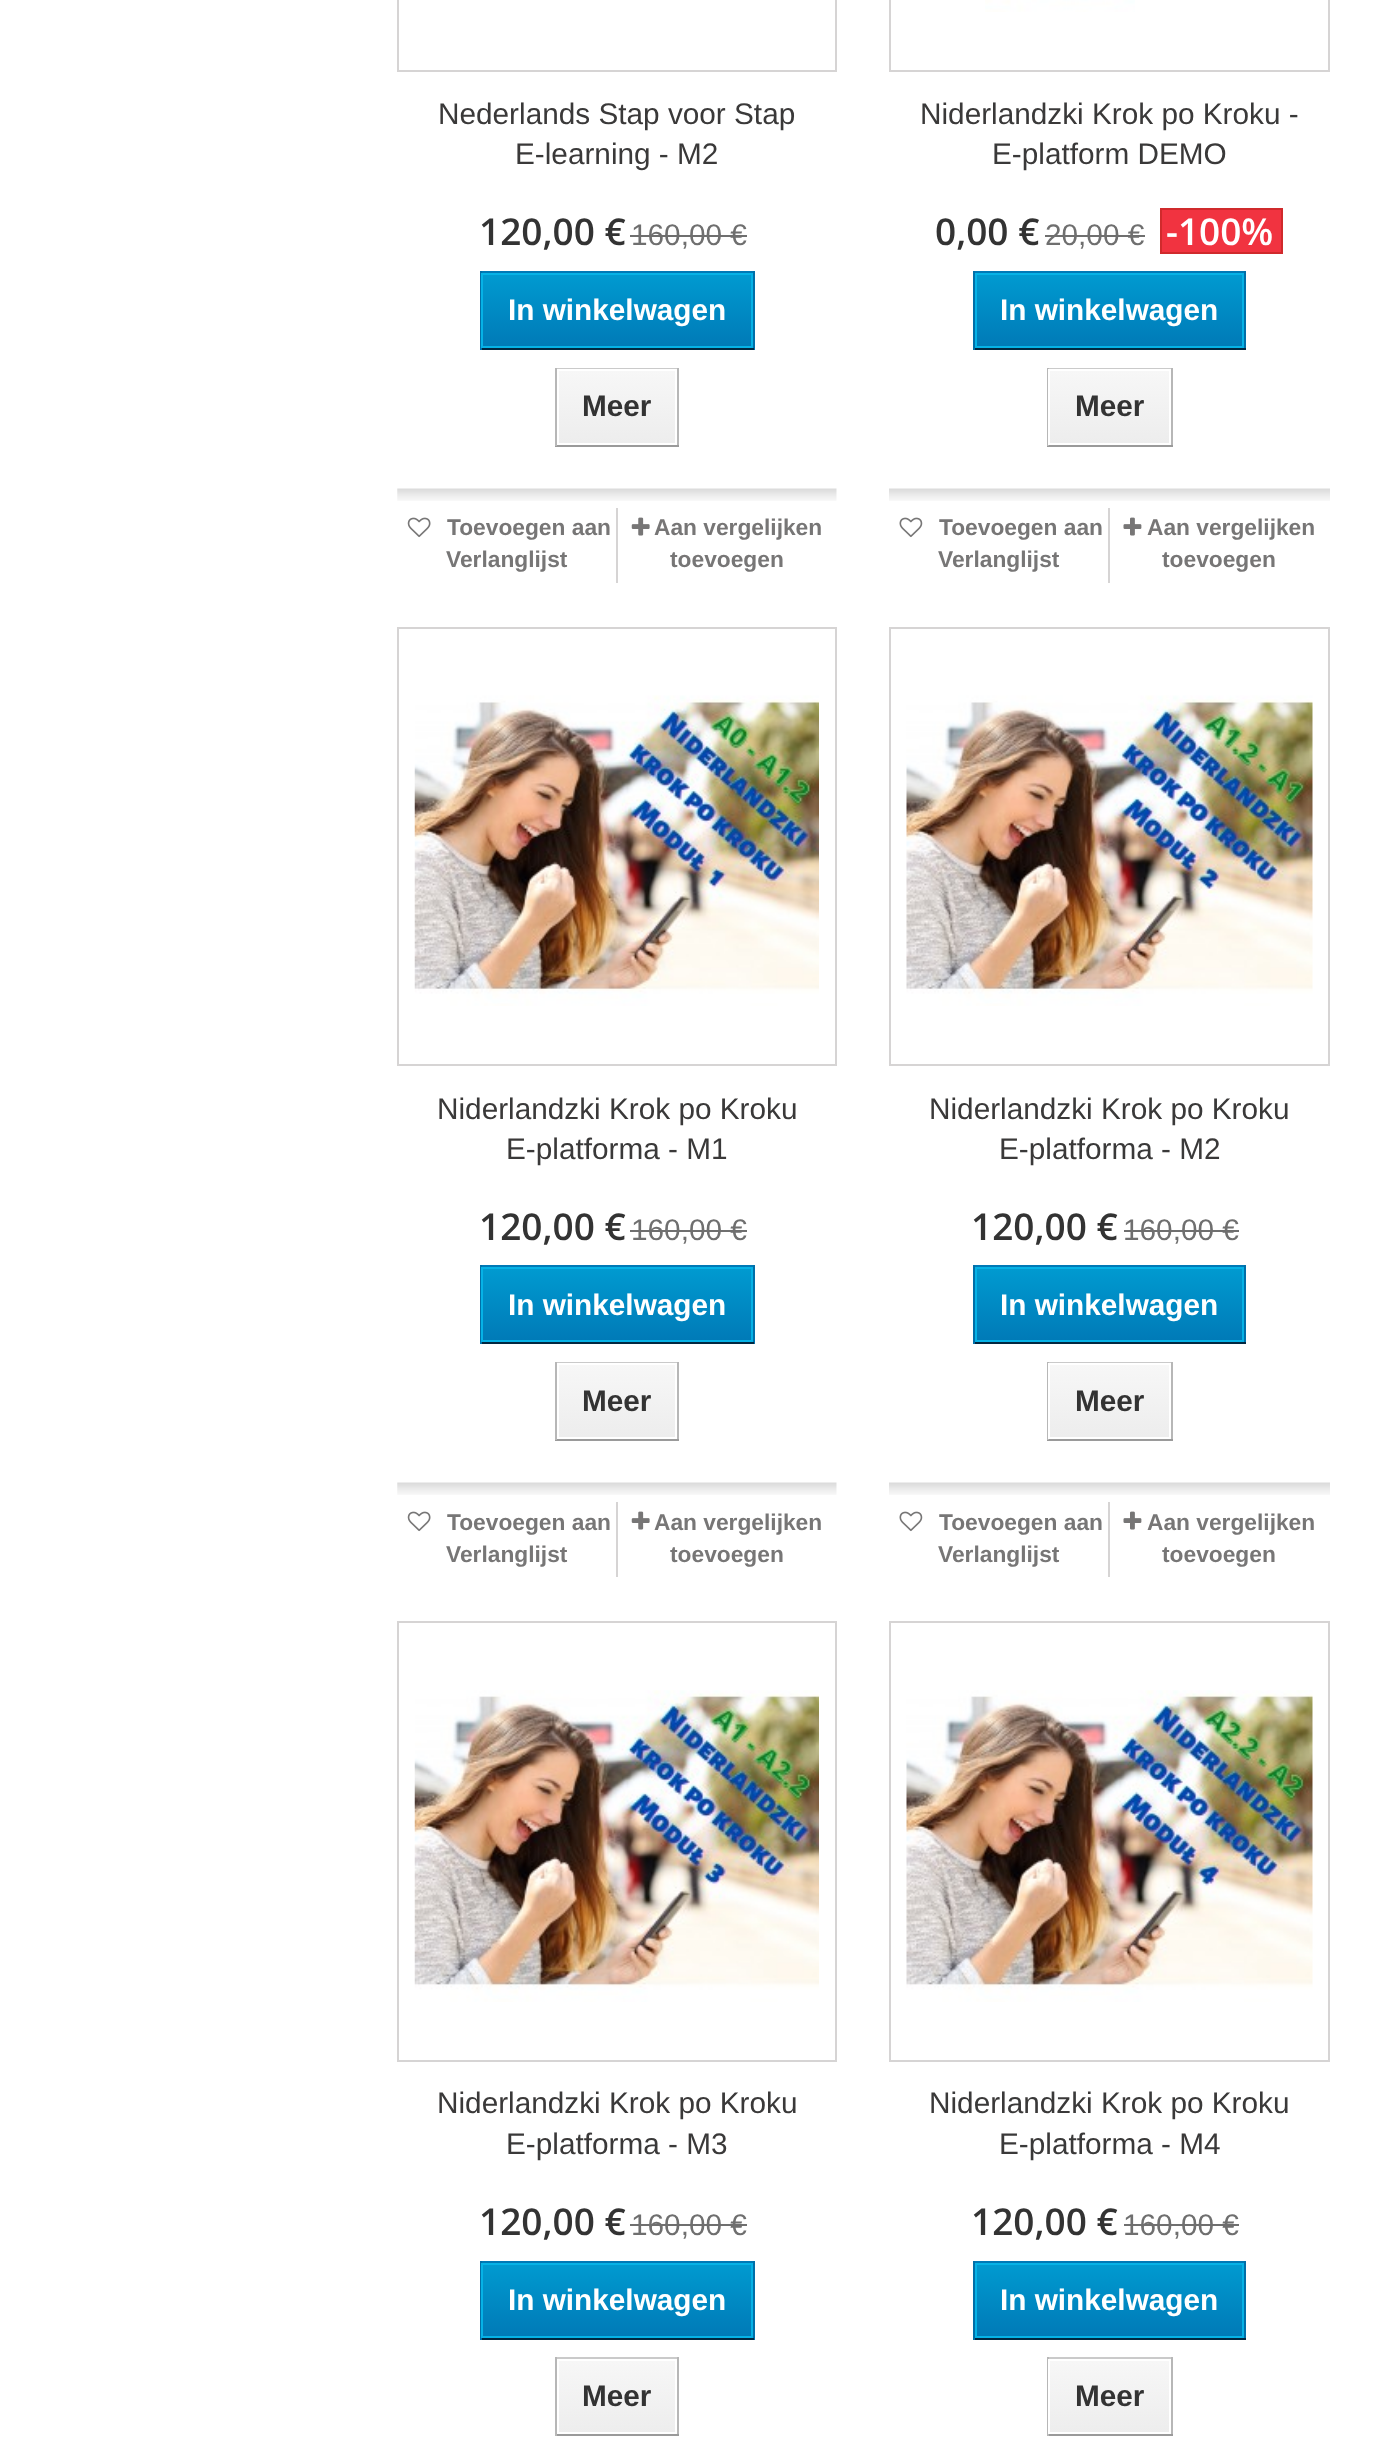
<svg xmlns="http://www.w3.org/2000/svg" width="1398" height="2457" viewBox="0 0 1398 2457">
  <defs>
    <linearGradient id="g1" gradientUnits="userSpaceOnUse" x1="617" y1="275" x2="617" y2="347"><stop offset="0" stop-color="#009ad0"/><stop offset="1" stop-color="#007ab7"/></linearGradient>
    <linearGradient id="g2" gradientUnits="userSpaceOnUse" x1="617" y1="371" x2="617" y2="443"><stop offset="0" stop-color="#f7f7f7"/><stop offset="1" stop-color="#ededed"/></linearGradient>
    <linearGradient id="g3" gradientUnits="userSpaceOnUse" x1="1110" y1="275" x2="1110" y2="347"><stop offset="0" stop-color="#009ad0"/><stop offset="1" stop-color="#007ab7"/></linearGradient>
    <linearGradient id="g4" gradientUnits="userSpaceOnUse" x1="1110" y1="371" x2="1110" y2="443"><stop offset="0" stop-color="#f7f7f7"/><stop offset="1" stop-color="#ededed"/></linearGradient>
    <linearGradient id="g5" gradientUnits="userSpaceOnUse" x1="617" y1="1269" x2="617" y2="1341"><stop offset="0" stop-color="#009ad0"/><stop offset="1" stop-color="#007ab7"/></linearGradient>
    <linearGradient id="g6" gradientUnits="userSpaceOnUse" x1="617" y1="1365" x2="617" y2="1437"><stop offset="0" stop-color="#f7f7f7"/><stop offset="1" stop-color="#ededed"/></linearGradient>
    <linearGradient id="g7" gradientUnits="userSpaceOnUse" x1="1110" y1="1269" x2="1110" y2="1341"><stop offset="0" stop-color="#009ad0"/><stop offset="1" stop-color="#007ab7"/></linearGradient>
    <linearGradient id="g8" gradientUnits="userSpaceOnUse" x1="1110" y1="1365" x2="1110" y2="1437"><stop offset="0" stop-color="#f7f7f7"/><stop offset="1" stop-color="#ededed"/></linearGradient>
    <linearGradient id="g9" gradientUnits="userSpaceOnUse" x1="617" y1="2265" x2="617" y2="2336"><stop offset="0" stop-color="#009ad0"/><stop offset="1" stop-color="#007ab7"/></linearGradient>
    <linearGradient id="g10" gradientUnits="userSpaceOnUse" x1="617" y1="2361" x2="617" y2="2433"><stop offset="0" stop-color="#f7f7f7"/><stop offset="1" stop-color="#ededed"/></linearGradient>
    <linearGradient id="g11" gradientUnits="userSpaceOnUse" x1="1110" y1="2265" x2="1110" y2="2336"><stop offset="0" stop-color="#009ad0"/><stop offset="1" stop-color="#007ab7"/></linearGradient>
    <linearGradient id="g12" gradientUnits="userSpaceOnUse" x1="1110" y1="2361" x2="1110" y2="2433"><stop offset="0" stop-color="#f7f7f7"/><stop offset="1" stop-color="#ededed"/></linearGradient>
  </defs>
  <rect width="100%" height="100%" fill="#fff"/>
  <path d="M398 -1h438v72H398z" fill="none" stroke="#d6d4d4" stroke-width="2"/>
  <path d="M630 235h117v2H630z" fill="#6f6f6f"/>
  <path d="M480 271h274v2H480z" fill="#0079b6"/>
  <path d="M753 271h2v79H753z" fill="#006fa8"/>
  <path d="M480 348h274v2H480z" fill="#012740"/>
  <path d="M480 271h2v79H480z" fill="#006fa8"/>
  <path d="M483 275h268v71H483z" fill="url(#g1)"/>
  <path d="M482 274h270v73H482z" fill="none" stroke="#06b2e6" stroke-width="2"/>
  <path d="M555 368h124v1H555z" fill="#cacaca"/>
  <path d="M677 368h2v78H677z" fill="#b7b7b7"/>
  <path d="M555 445h124v2H555z" fill="#9a9a9a"/>
  <path d="M555 368h2v78H555z" fill="#b7b7b7"/>
  <path d="M559 371h116v72H559z" fill="url(#g2)"/>
  <image x="397" y="488" width="440" height="13" href="img/1.png"/>
  <path d="M616 508h2v75H616z" fill="#d6d4d4"/>
  <image x="407" y="517" width="24" height="21" href="img/2.png"/>
  <image x="631" y="517" width="19" height="19" href="img/3.png"/>
  <path d="M890 -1h439v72H890z" fill="none" stroke="#d6d4d4" stroke-width="2"/>
  <image x="985" y="0" width="150" height="12" href="img/4.png"/>
  <path d="M1045 235h100v2H1045z" fill="#6f6f6f"/>
  <path d="M1161 209h121v44H1161z" fill="#f13340" stroke="#d02a2c" stroke-width="2"/>
  <path d="M973 271h273v2H973z" fill="#0079b6"/>
  <path d="M1244 271h2v79H1244z" fill="#006fa8"/>
  <path d="M973 348h273v2H973z" fill="#012740"/>
  <path d="M973 271h2v79H973z" fill="#006fa8"/>
  <path d="M977 275h265v71H977z" fill="url(#g3)"/>
  <path d="M976 274h267v73H976z" fill="none" stroke="#06b2e6" stroke-width="2"/>
  <path d="M1047 368h126v1H1047z" fill="#cacaca"/>
  <path d="M1171 368h2v78H1171z" fill="#b7b7b7"/>
  <path d="M1047 445h126v2H1047z" fill="#9a9a9a"/>
  <path d="M1047 368h2v78H1047z" fill="#b7b7b7"/>
  <path d="M1050 371h119v72H1050z" fill="url(#g4)"/>
  <path d="M1049 370h121v74H1049z" fill="none" stroke="#fff" stroke-width="2"/>
  <image x="889" y="488" width="441" height="13" href="img/5.png"/>
  <path d="M1108 508h2v75H1108z" fill="#d6d4d4"/>
  <image x="899" y="517" width="24" height="21" href="img/6.png"/>
  <image x="1123" y="517" width="19" height="19" href="img/7.png"/>
  <path d="M398 628h438v437H398z" fill="none" stroke="#d6d4d4" stroke-width="2"/>
  <image x="414" y="695" width="405" height="311" href="img/8.png"/>
  <path d="M630 1230h117v2H630z" fill="#6f6f6f"/>
  <path d="M480 1265h274v2H480z" fill="#0079b6"/>
  <path d="M753 1265h2v79H753z" fill="#006fa8"/>
  <path d="M480 1342h274v2H480z" fill="#012740"/>
  <path d="M480 1265h2v79H480z" fill="#006fa8"/>
  <path d="M483 1269h268v71H483z" fill="url(#g5)"/>
  <path d="M482 1268h270v73H482z" fill="none" stroke="#06b2e6" stroke-width="2"/>
  <path d="M555 1362h124v1H555z" fill="#cacaca"/>
  <path d="M677 1362h2v78H677z" fill="#b7b7b7"/>
  <path d="M555 1439h124v2H555z" fill="#9a9a9a"/>
  <path d="M555 1362h2v78H555z" fill="#b7b7b7"/>
  <path d="M559 1365h116v72H559z" fill="url(#g6)"/>
  <image x="397" y="1482" width="440" height="13" href="img/1.png"/>
  <path d="M616 1502h2v75H616z" fill="#d6d4d4"/>
  <image x="407" y="1511" width="24" height="21" href="img/2.png"/>
  <image x="631" y="1511" width="19" height="19" href="img/3.png"/>
  <path d="M890 628h439v437H890z" fill="none" stroke="#d6d4d4" stroke-width="2"/>
  <image x="906" y="695" width="407" height="311" href="img/9.png"/>
  <path d="M1124 1230h115v2H1124z" fill="#6f6f6f"/>
  <path d="M973 1265h273v2H973z" fill="#0079b6"/>
  <path d="M1244 1265h2v79H1244z" fill="#006fa8"/>
  <path d="M973 1342h273v2H973z" fill="#012740"/>
  <path d="M973 1265h2v79H973z" fill="#006fa8"/>
  <path d="M977 1269h265v71H977z" fill="url(#g7)"/>
  <path d="M976 1268h267v73H976z" fill="none" stroke="#06b2e6" stroke-width="2"/>
  <path d="M1047 1362h126v1H1047z" fill="#cacaca"/>
  <path d="M1171 1362h2v78H1171z" fill="#b7b7b7"/>
  <path d="M1047 1439h126v2H1047z" fill="#9a9a9a"/>
  <path d="M1047 1362h2v78H1047z" fill="#b7b7b7"/>
  <path d="M1050 1365h119v72H1050z" fill="url(#g8)"/>
  <path d="M1049 1364h121v74H1049z" fill="none" stroke="#fff" stroke-width="2"/>
  <image x="889" y="1482" width="441" height="13" href="img/5.png"/>
  <path d="M1108 1502h2v75H1108z" fill="#d6d4d4"/>
  <image x="899" y="1511" width="24" height="21" href="img/6.png"/>
  <image x="1123" y="1511" width="19" height="19" href="img/7.png"/>
  <path d="M398 1622h438v439H398z" fill="none" stroke="#d6d4d4" stroke-width="2"/>
  <image x="414" y="1690" width="405" height="312" href="img/10.png"/>
  <path d="M630 2224h117v2H630z" fill="#6f6f6f"/>
  <path d="M480 2261h274v2H480z" fill="#0079b6"/>
  <path d="M753 2261h2v79H753z" fill="#006fa8"/>
  <path d="M480 2338h274v2H480z" fill="#012740"/>
  <path d="M480 2261h2v79H480z" fill="#006fa8"/>
  <path d="M483 2265h268v71H483z" fill="url(#g9)"/>
  <path d="M482 2264h270v73H482z" fill="none" stroke="#06b2e6" stroke-width="2"/>
  <path d="M555 2357h124v2H555z" fill="#cacaca"/>
  <path d="M677 2357h2v79H677z" fill="#b7b7b7"/>
  <path d="M555 2434h124v2H555z" fill="#9a9a9a"/>
  <path d="M555 2357h2v79H555z" fill="#b7b7b7"/>
  <path d="M559 2361h116v71H559z" fill="url(#g10)"/>
  <path d="M890 1622h439v439H890z" fill="none" stroke="#d6d4d4" stroke-width="2"/>
  <image x="906" y="1690" width="407" height="312" href="img/11.png"/>
  <path d="M1124 2224h115v2H1124z" fill="#6f6f6f"/>
  <path d="M973 2261h273v2H973z" fill="#0079b6"/>
  <path d="M1244 2261h2v79H1244z" fill="#006fa8"/>
  <path d="M973 2338h273v2H973z" fill="#012740"/>
  <path d="M973 2261h2v79H973z" fill="#006fa8"/>
  <path d="M977 2265h265v71H977z" fill="url(#g11)"/>
  <path d="M976 2264h267v73H976z" fill="none" stroke="#06b2e6" stroke-width="2"/>
  <path d="M1047 2357h126v2H1047z" fill="#cacaca"/>
  <path d="M1171 2357h2v79H1171z" fill="#b7b7b7"/>
  <path d="M1047 2434h126v2H1047z" fill="#9a9a9a"/>
  <path d="M1047 2357h2v79H1047z" fill="#b7b7b7"/>
  <path d="M1050 2361h119v71H1050z" fill="url(#g12)"/>
  <path d="M1049 2360h121v73H1049z" fill="none" stroke="#fff" stroke-width="2"/>
  <g font-family="Liberation Sans" font-size="29.75" fill="#3a3939">
    <text x="438" y="124">Nederlands Stap voor Stap</text>
    <text x="515" y="164">E-learning - M2</text>
  </g>
  <text x="479" y="245" font-family="Open Sans" font-size="37" font-weight="600" fill="#333">120,00 €</text>
  <text x="631" y="245" font-family="Liberation Sans" font-size="29.75" fill="#6f6f6f">160,00 €</text>
  <text x="508" y="320" font-family="Liberation Sans" font-size="29.75" font-weight="bold" fill="#fff">In winkelwagen</text>
  <text x="582" y="416" font-family="Liberation Sans" font-size="29.75" font-weight="bold" fill="#333">Meer</text>
  <g font-family="Liberation Sans" font-size="22.75" font-weight="bold" fill="#777676">
    <text x="447" y="535">Toevoegen aan</text>
    <text x="446" y="567">Verlanglijst</text>
    <text x="654" y="535">Aan vergelijken</text>
    <text x="670" y="567">toevoegen</text>
  </g>
  <g font-family="Liberation Sans" font-size="29.75" fill="#3a3939">
    <text x="920" y="124">Niderlandzki Krok po Kroku -</text>
    <text x="992" y="164">E-platform DEMO</text>
  </g>
  <text x="935" y="245" font-family="Open Sans" font-size="37" font-weight="600" fill="#333">0,00 €</text>
  <text x="1045" y="245" font-family="Liberation Sans" font-size="29.75" fill="#6f6f6f">20,00 €</text>
  <text x="1166" y="245" font-family="Open Sans" font-size="37" font-weight="600" fill="#fff">-100%</text>
  <text x="1000" y="320" font-family="Liberation Sans" font-size="29.75" font-weight="bold" fill="#fff">In winkelwagen</text>
  <text x="1075" y="416" font-family="Liberation Sans" font-size="29.75" font-weight="bold" fill="#333">Meer</text>
  <g font-family="Liberation Sans" font-size="22.75" font-weight="bold" fill="#777676">
    <text x="939" y="535">Toevoegen aan</text>
    <text x="938" y="567">Verlanglijst</text>
    <text x="1147" y="535">Aan vergelijken</text>
    <text x="1162" y="567">toevoegen</text>
  </g>
  <g font-family="Liberation Sans" font-size="29.75" fill="#3a3939">
    <text x="437" y="1119">Niderlandzki Krok po Kroku</text>
    <text x="506" y="1159">E-platforma - M1</text>
  </g>
  <text x="479" y="1240" font-family="Open Sans" font-size="37" font-weight="600" fill="#333">120,00 €</text>
  <text x="631" y="1240" font-family="Liberation Sans" font-size="29.75" fill="#6f6f6f">160,00 €</text>
  <text x="508" y="1315" font-family="Liberation Sans" font-size="29.75" font-weight="bold" fill="#fff">In winkelwagen</text>
  <text x="582" y="1411" font-family="Liberation Sans" font-size="29.75" font-weight="bold" fill="#333">Meer</text>
  <g font-family="Liberation Sans" font-size="22.75" font-weight="bold" fill="#777676">
    <text x="447" y="1530">Toevoegen aan</text>
    <text x="446" y="1562">Verlanglijst</text>
    <text x="654" y="1530">Aan vergelijken</text>
    <text x="670" y="1562">toevoegen</text>
  </g>
  <g font-family="Liberation Sans" font-size="29.75" fill="#3a3939">
    <text x="929" y="1119">Niderlandzki Krok po Kroku</text>
    <text x="999" y="1159">E-platforma - M2</text>
  </g>
  <text x="971" y="1240" font-family="Open Sans" font-size="37" font-weight="600" fill="#333">120,00 €</text>
  <text x="1123" y="1240" font-family="Liberation Sans" font-size="29.75" fill="#6f6f6f">160,00 €</text>
  <text x="1000" y="1315" font-family="Liberation Sans" font-size="29.75" font-weight="bold" fill="#fff">In winkelwagen</text>
  <text x="1075" y="1411" font-family="Liberation Sans" font-size="29.75" font-weight="bold" fill="#333">Meer</text>
  <g font-family="Liberation Sans" font-size="22.75" font-weight="bold" fill="#777676">
    <text x="939" y="1530">Toevoegen aan</text>
    <text x="938" y="1562">Verlanglijst</text>
    <text x="1147" y="1530">Aan vergelijken</text>
    <text x="1162" y="1562">toevoegen</text>
  </g>
  <g font-family="Liberation Sans" font-size="29.75" fill="#3a3939">
    <text x="437" y="2113">Niderlandzki Krok po Kroku</text>
    <text x="506" y="2154">E-platforma - M3</text>
  </g>
  <text x="479" y="2235" font-family="Open Sans" font-size="37" font-weight="600" fill="#333">120,00 €</text>
  <text x="631" y="2235" font-family="Liberation Sans" font-size="29.75" fill="#6f6f6f">160,00 €</text>
  <text x="508" y="2310" font-family="Liberation Sans" font-size="29.75" font-weight="bold" fill="#fff">In winkelwagen</text>
  <text x="582" y="2406" font-family="Liberation Sans" font-size="29.75" font-weight="bold" fill="#333">Meer</text>
  <g font-family="Liberation Sans" font-size="29.75" fill="#3a3939">
    <text x="929" y="2113">Niderlandzki Krok po Kroku</text>
    <text x="999" y="2154">E-platforma - M4</text>
  </g>
  <text x="971" y="2235" font-family="Open Sans" font-size="37" font-weight="600" fill="#333">120,00 €</text>
  <text x="1123" y="2235" font-family="Liberation Sans" font-size="29.75" fill="#6f6f6f">160,00 €</text>
  <text x="1000" y="2310" font-family="Liberation Sans" font-size="29.75" font-weight="bold" fill="#fff">In winkelwagen</text>
  <text x="1075" y="2406" font-family="Liberation Sans" font-size="29.75" font-weight="bold" fill="#333">Meer</text>
</svg>
